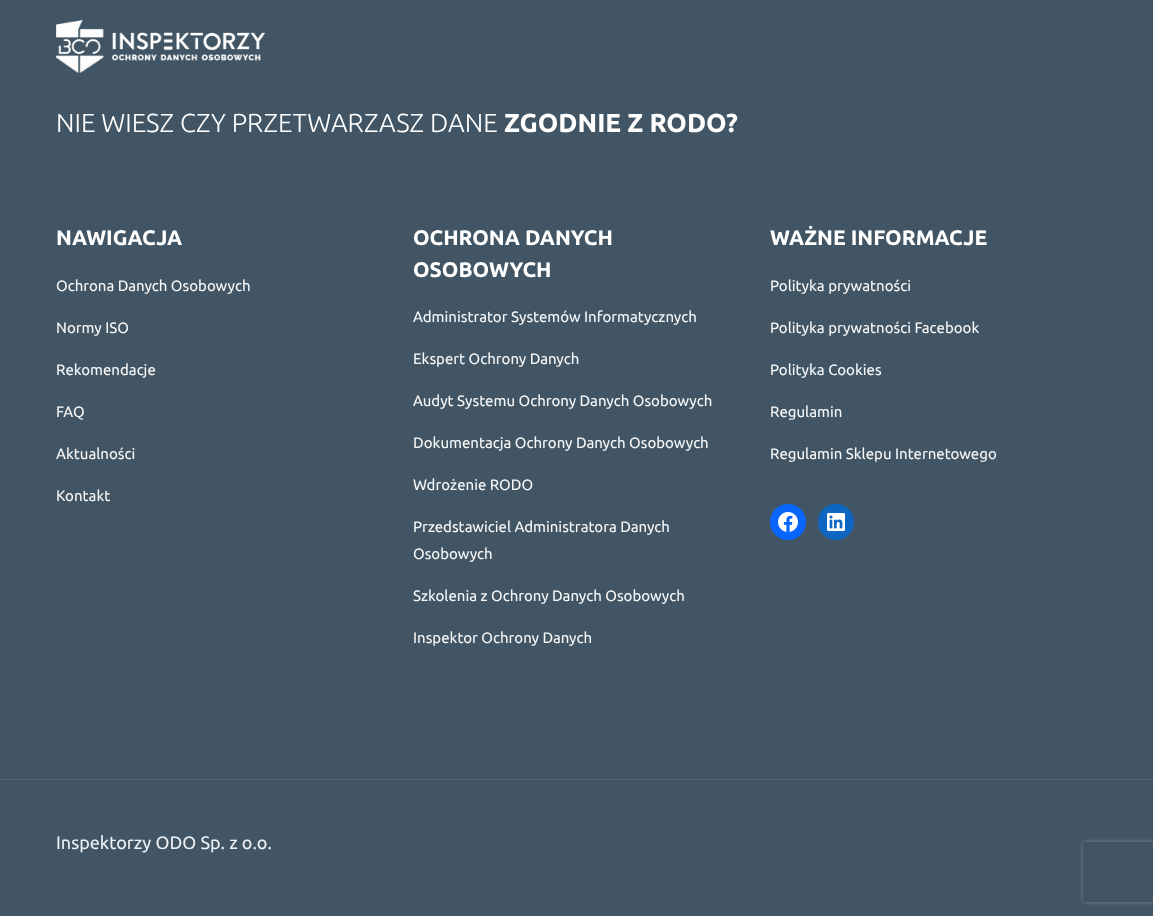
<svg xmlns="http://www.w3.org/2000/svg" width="1153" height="916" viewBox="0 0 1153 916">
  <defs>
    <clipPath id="clip1"><path d="M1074 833H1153V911H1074ZM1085 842H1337C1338 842 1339 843 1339 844V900C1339 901 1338 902 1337 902H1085C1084 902 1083 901 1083 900V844C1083 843 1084 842 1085 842Z" clip-rule="evenodd"/></clipPath>
  </defs>
  <rect width="100%" height="100%" fill="#415564"/>
  <image x="56" y="20" width="209" height="53" href="img/1.png"/>
  <circle cx="788" cy="522" r="18" fill="#0866ff"/>
  <image x="778" y="512" width="20" height="20" href="img/2.png"/>
  <circle cx="836" cy="522" r="18" fill="#0d66c2"/>
  <image x="827" y="513" width="18" height="18" href="img/3.png"/>
  <path d="M0 779h1153v1H0z" fill="#56677a"/>
  <g clip-path="url(#clip1)">
    <rect x="1083" y="842" width="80" height="60" rx="2" fill="#808080" filter="blur(2.5px)"/>
  </g>
  <text x="56" y="132" font-family="Ubuntu" font-size="26" font-weight="300" fill="#fff">NIE WIESZ CZY PRZETWARZASZ DANE</text>
  <text x="504" y="132" font-family="Ubuntu" font-size="26" font-weight="bold" fill="#fff">ZGODNIE Z RODO?</text>
  <text x="56" y="245" font-family="Ubuntu" font-size="21" font-weight="bold" fill="#fff">NAWIGACJA</text>
  <g font-family="Ubuntu" font-size="15" fill="#f9f9f9">
    <text x="56" y="291">Ochrona Danych Osobowych</text>
    <text x="56" y="333">Normy ISO</text>
    <text x="56" y="375">Rekomendacje</text>
    <text x="56" y="417">FAQ</text>
    <text x="56" y="459">Aktualności</text>
    <text x="56" y="501">Kontakt</text>
  </g>
  <g font-family="Ubuntu" font-size="21" font-weight="bold" fill="#fff">
    <text x="413" y="245">OCHRONA DANYCH</text>
    <text x="413" y="277">OSOBOWYCH</text>
  </g>
  <g font-family="Ubuntu" font-size="15" fill="#f9f9f9">
    <text x="413" y="322">Administrator Systemów Informatycznych</text>
    <text x="413" y="364">Ekspert Ochrony Danych</text>
    <text x="413" y="406">Audyt Systemu Ochrony Danych Osobowych</text>
    <text x="413" y="448">Dokumentacja Ochrony Danych Osobowych</text>
    <text x="413" y="490">Wdrożenie RODO</text>
    <text x="413" y="532">Przedstawiciel Administratora Danych</text>
    <text x="413" y="559">Osobowych</text>
    <text x="413" y="601">Szkolenia z Ochrony Danych Osobowych</text>
    <text x="413" y="643">Inspektor Ochrony Danych</text>
  </g>
  <text x="770" y="245" font-family="Ubuntu" font-size="21" font-weight="bold" fill="#fff">WAŻNE INFORMACJE</text>
  <g font-family="Ubuntu" font-size="15" fill="#f9f9f9">
    <text x="770" y="291">Polityka prywatności</text>
    <text x="770" y="333">Polityka prywatności Facebook</text>
    <text x="770" y="375">Polityka Cookies</text>
    <text x="770" y="417">Regulamin</text>
    <text x="770" y="459">Regulamin Sklepu Internetowego</text>
  </g>
  <text x="56" y="849" font-family="Ubuntu" font-size="18" fill="#edf2f7">Inspektorzy ODO Sp. z o.o.</text>
</svg>
